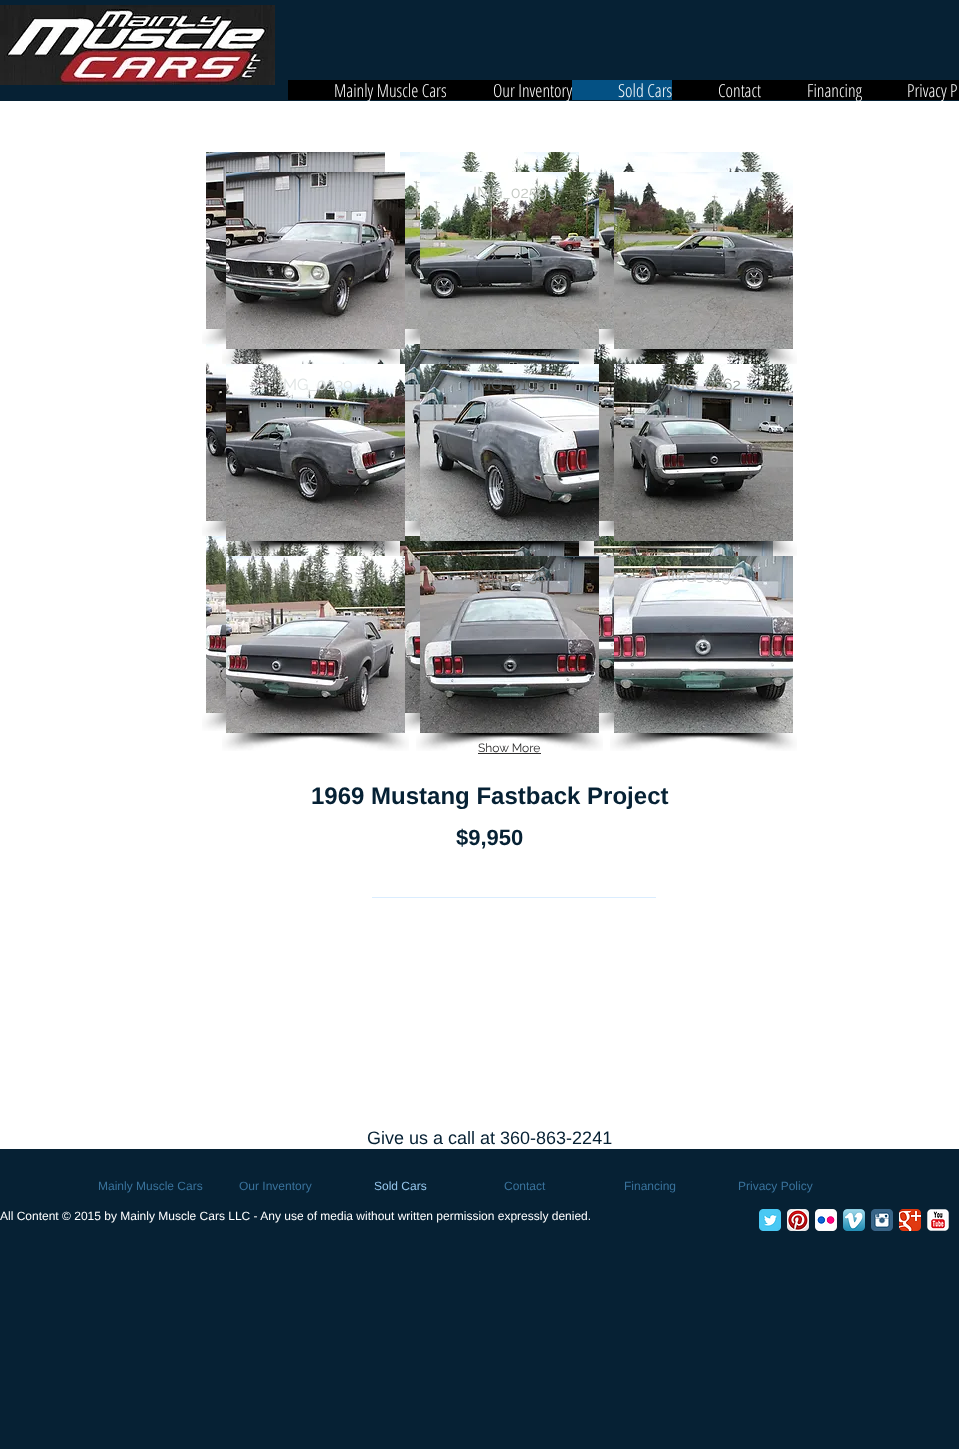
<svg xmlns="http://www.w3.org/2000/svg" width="959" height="1449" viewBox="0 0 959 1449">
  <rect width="100%" height="100%" fill="#062134"/>
  <image x="0" y="5" width="275" height="80" href="img/1.png"/>
  <path d="M288 80h284v20H288z" fill="#000"/>
  <path d="M572 80h100v20H572z" fill="#045184"/>
  <path d="M672 80h287v20H672z" fill="#000"/>
  <path d="M0 101h959v1048H0z" fill="#fff"/>
  <image x="206" y="152" width="179" height="177" href="img/2.png"/>
  <image x="202" y="329" width="24" height="15" href="img/3.png"/>
  <image x="400" y="152" width="179" height="177" href="img/4.png"/>
  <image x="405" y="329" width="15" height="15" href="img/5.png"/>
  <image x="594" y="152" width="179" height="177" href="img/6.png"/>
  <image x="599" y="329" width="15" height="15" href="img/5.png"/>
  <image x="206" y="344" width="179" height="177" href="img/7.png"/>
  <image x="202" y="521" width="24" height="15" href="img/3.png"/>
  <image x="400" y="344" width="179" height="177" href="img/8.png"/>
  <image x="405" y="521" width="15" height="15" href="img/5.png"/>
  <image x="594" y="344" width="179" height="177" href="img/9.png"/>
  <image x="599" y="521" width="15" height="15" href="img/5.png"/>
  <image x="206" y="536" width="179" height="177" href="img/10.png"/>
  <image x="202" y="713" width="24" height="18" href="img/11.png"/>
  <image x="400" y="536" width="179" height="177" href="img/12.png"/>
  <image x="405" y="713" width="15" height="18" href="img/13.png"/>
  <image x="594" y="536" width="179" height="177" href="img/14.png"/>
  <image x="599" y="713" width="15" height="18" href="img/13.png"/>
  <image x="226" y="172" width="179" height="177" href="img/2.png"/>
  <image x="222" y="349" width="154" height="15" href="img/15.png"/>
  <image x="285" y="349" width="121" height="15" href="img/16.png"/>
  <image x="420" y="172" width="179" height="177" href="img/4.png"/>
  <image x="421" y="349" width="149" height="15" href="img/17.png"/>
  <image x="482" y="349" width="121" height="15" href="img/18.png"/>
  <image x="614" y="172" width="179" height="177" href="img/6.png"/>
  <image x="610" y="349" width="148" height="15" href="img/19.png"/>
  <image x="675" y="349" width="122" height="15" href="img/20.png"/>
  <image x="226" y="364" width="179" height="177" href="img/7.png"/>
  <image x="222" y="541" width="154" height="15" href="img/21.png"/>
  <image x="286" y="541" width="123" height="15" href="img/22.png"/>
  <image x="420" y="364" width="179" height="177" href="img/8.png"/>
  <image x="416" y="541" width="141" height="15" href="img/23.png"/>
  <image x="498" y="541" width="105" height="15" href="img/24.png"/>
  <image x="614" y="364" width="179" height="177" href="img/9.png"/>
  <image x="610" y="541" width="152" height="15" href="img/25.png"/>
  <image x="686" y="541" width="111" height="15" href="img/26.png"/>
  <image x="226" y="556" width="179" height="177" href="img/10.png"/>
  <image x="222" y="733" width="154" height="18" href="img/27.png"/>
  <image x="285" y="733" width="124" height="18" href="img/28.png"/>
  <image x="420" y="556" width="179" height="177" href="img/12.png"/>
  <image x="416" y="733" width="154" height="18" href="img/29.png"/>
  <image x="479" y="733" width="124" height="18" href="img/30.png"/>
  <image x="614" y="556" width="179" height="177" href="img/14.png"/>
  <image x="610" y="733" width="154" height="18" href="img/27.png"/>
  <image x="673" y="733" width="124" height="18" href="img/28.png"/>
  <path d="M478 753h63v1H478z" fill="#2f2e2e"/>
  <path d="M372 897h284v1H372z" fill="#daedff"/>
  <image x="759" y="1209" width="22" height="22" href="img/31.png"/>
  <image x="787" y="1209" width="22" height="22" href="img/32.png"/>
  <image x="815" y="1209" width="22" height="22" href="img/33.png"/>
  <image x="843" y="1209" width="22" height="22" href="img/34.png"/>
  <image x="871" y="1209" width="22" height="22" href="img/35.png"/>
  <image x="899" y="1209" width="22" height="22" href="img/36.png"/>
  <image x="927" y="1209" width="22" height="22" href="img/37.png"/>
  <g font-family="Open Sans Condensed" font-size="18" font-weight="300" fill="#fff">
    <text x="334" y="97">Mainly Muscle Cars</text>
    <text x="493" y="97">Our Inventory</text>
    <text x="618" y="97">Sold Cars</text>
    <text x="718" y="97">Contact</text>
    <text x="807" y="97">Financing</text>
    <text x="907" y="97">Privacy P</text>
  </g>
  <text x="473" y="198" font-family="Raleway" font-size="16" fill="#c3c8c2">IMG_0259</text>
  <text x="279" y="390" font-family="Raleway" font-size="16" fill="#dfe4e4">IMG_0239</text>
  <text x="473" y="390" font-family="Raleway" font-size="16" fill="#5a5e5f">IMG_0193</text>
  <text x="667" y="390" font-family="Raleway" font-size="16" fill="#969a98">IMG_0262</text>
  <text x="279" y="582" font-family="Raleway" font-size="16" fill="#969a91">IMG_0263</text>
  <text x="473" y="582" font-family="Raleway" font-size="16" fill="#7c7975">IMG_0238</text>
  <text x="667" y="582" font-family="Raleway" font-size="16" fill="#c7c8c8">IMG_0192</text>
  <text x="478" y="752" font-family="Raleway" font-size="12" fill="#2f2e2e">Show More</text>
  <text x="311" y="804" font-family="Liberation Sans" font-size="24" font-weight="bold" fill="#062134">1969 Mustang Fastback Project</text>
  <text x="456" y="845" font-family="Liberation Sans" font-size="22" font-weight="bold" fill="#062134">$9,950</text>
  <text x="367" y="1144" font-family="Liberation Sans" font-size="18" fill="#062134">Give us a call at 360-863-2241</text>
  <g font-family="Liberation Sans" font-size="12" fill="#39729b">
    <text x="98" y="1190">Mainly Muscle Cars</text>
    <text x="239" y="1190">Our Inventory</text>
  </g>
  <text x="374" y="1190" font-family="Liberation Sans" font-size="12" fill="#95c6ec">Sold Cars</text>
  <g font-family="Liberation Sans" font-size="12" fill="#39729b">
    <text x="504" y="1190">Contact</text>
    <text x="624" y="1190">Financing</text>
    <text x="738" y="1190">Privacy Policy</text>
  </g>
  <text x="0" y="1220" font-family="Liberation Sans" font-size="12" fill="#fff">All Content © 2015 by Mainly Muscle Cars LLC - Any use of media without written permission expressly denied.</text>
</svg>
